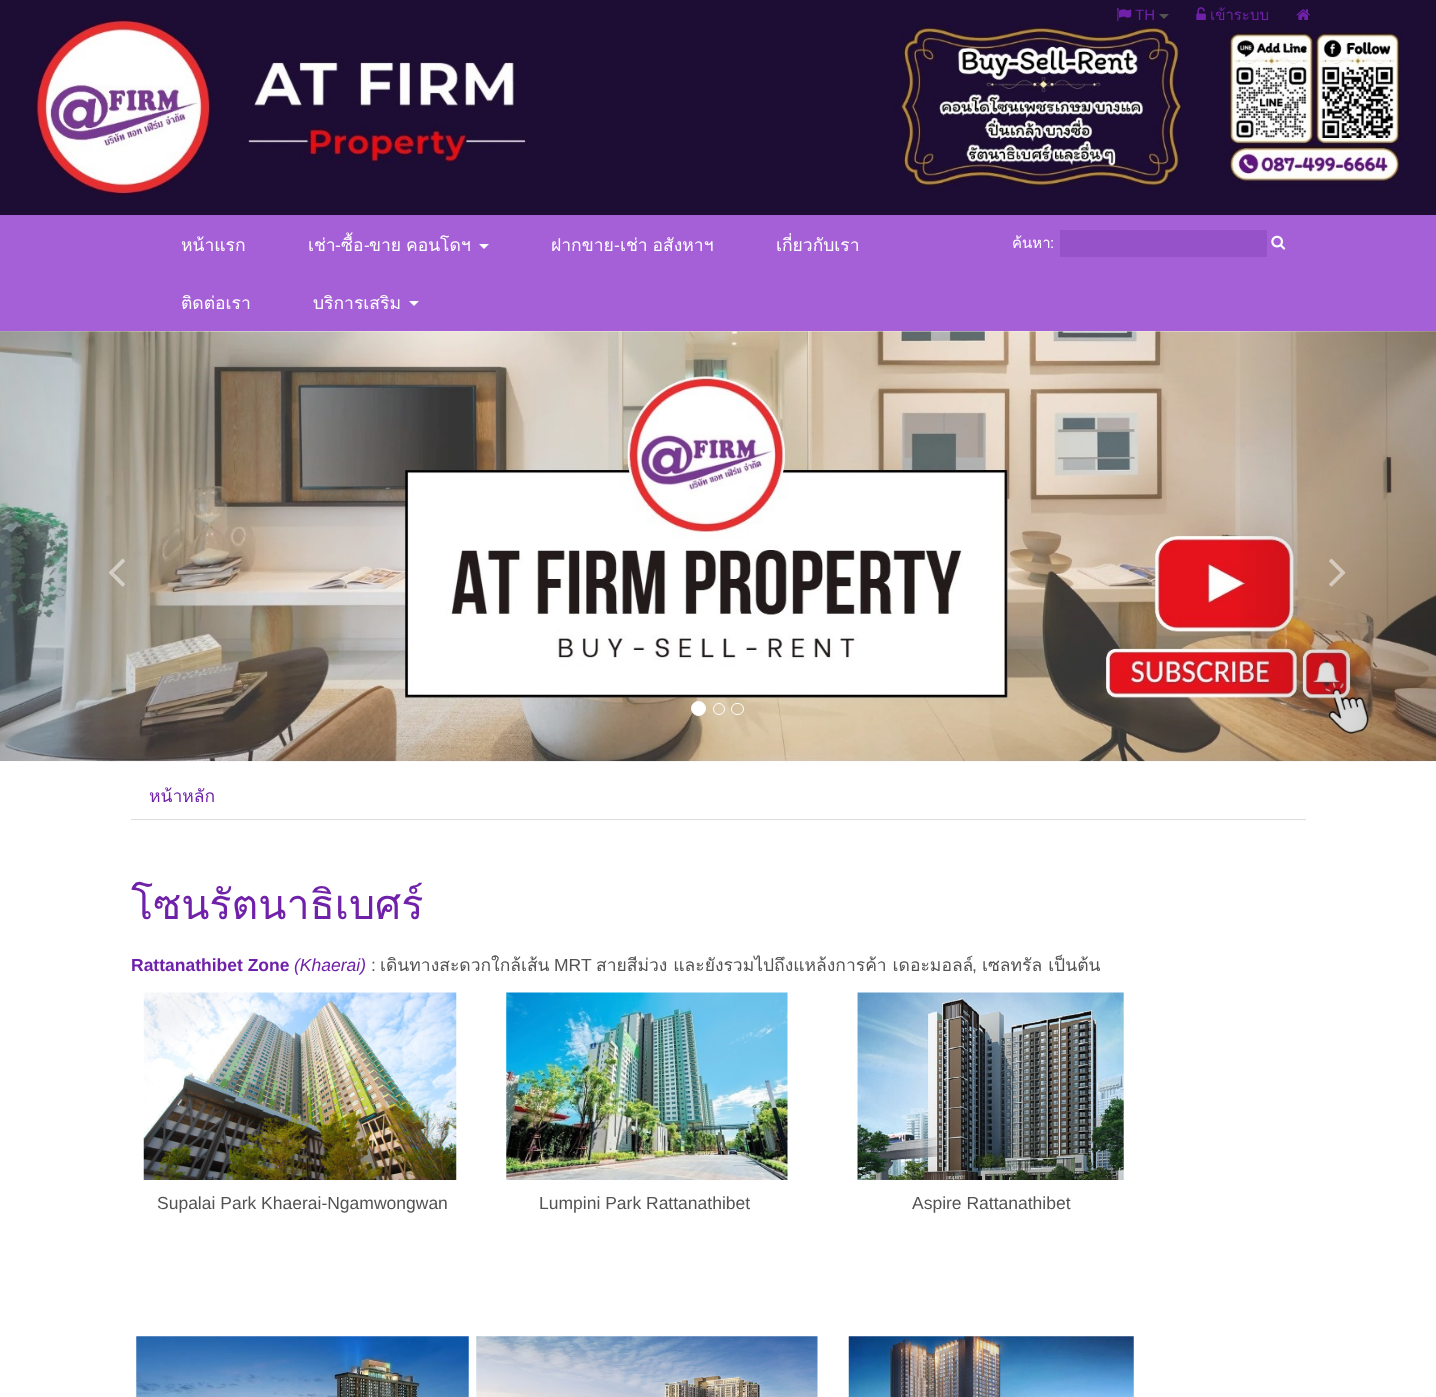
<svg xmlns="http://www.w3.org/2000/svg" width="1436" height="1397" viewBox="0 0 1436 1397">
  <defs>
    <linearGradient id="g1" gradientUnits="userSpaceOnUse" x1="0" y1="546" x2="215" y2="546"><stop offset="0" stop-color="#000" stop-opacity="0.25"/><stop offset="1" stop-color="#000" stop-opacity="0"/></linearGradient>
    <linearGradient id="g2" gradientUnits="userSpaceOnUse" x1="1221" y1="546" x2="1436" y2="546"><stop offset="0" stop-color="#000" stop-opacity="0"/><stop offset="1" stop-color="#000" stop-opacity="0.25"/></linearGradient>
  </defs>
  <rect width="100%" height="100%" fill="#fff"/>
  <path d="M0 0h1436v215H0z" fill="#1d0c34"/>
  <image x="33" y="19" width="1372" height="177" href="img/4.png"/>
  <image x="1116" y="8" width="16" height="14" href="img/1.png"/>
  <path d="M1159 14H1169L1164 19Z" fill="#535353"/>
  <image x="1196" y="7" width="10" height="13" href="img/2.png"/>
  <image x="1296" y="9" width="14" height="11" href="img/3.png"/>
  <path d="M0 215h1436v116H0z" fill="#a560d7"/>
  <path d="M479 244H489L484 249Z" fill="#fff"/>
  <path d="M409 301H419L414 306Z" fill="#fff"/>
  <path d="M1060 230h207v27H1060z" fill="#9652c8"/>
  <image x="1271" y="235" width="15" height="15" href="img/5.png"/>
  <path d="M0 331h1436v1H0z" fill="#f6f2f1"/>
  <image x="0" y="331" width="1436" height="431" href="img/6.png"/>
  <path d="M0 331h196v430H0z" fill="url(#g1)"/>
  <image x="108" y="558" width="17" height="29" href="img/7.png"/>
  <circle cx="698.5" cy="708.5" r="7" fill="#fff" stroke="#fff"/>
  <circle cx="719" cy="709" r="5.5" fill="none" stroke="#fff"/>
  <rect x="731.5" y="703.5" width="12" height="11" rx="5.5" fill="none" stroke="#fff"/>
  <path d="M1240 331h196v430H1240z" fill="url(#g2)"/>
  <image x="1329" y="558" width="17" height="29" href="img/8.png"/>
  <path d="M131 819h1175v1H131z" fill="#ddd"/>
  <image x="143" y="992" width="314" height="188" href="img/9.png"/>
  <image x="506" y="992" width="282" height="188" href="img/10.png"/>
  <image x="857" y="992" width="267" height="188" href="img/11.png"/>
  <image x="136" y="1336" width="333" height="61" href="img/12.png"/>
  <image x="476" y="1336" width="342" height="61" href="img/13.png"/>
  <image x="848" y="1336" width="286" height="61" href="img/14.png"/>
  <text x="1135" y="20" font-family="Liberation Sans" font-size="15" fill="#7021a9">TH</text>
  <text x="1210" y="20" font-family="Loma" font-size="15" fill="#7021a9">เข้าระบบ</text>
  <g font-family="Loma" font-size="17.5" fill="#fff">
    <text x="181" y="251">หน้าแรก</text>
    <text x="308" y="251">เช่า</text>
    <text x="369" y="251" word-spacing="-1">ขาย คอนโดฯ</text>
  </g>
  <text x="335" y="251" font-family="Liberation Sans" font-size="17.5" fill="#fff">-</text>
  <text x="341" y="251" font-family="Loma" font-size="17.5" fill="#fff">ซื้อ</text>
  <text x="364" y="251" font-family="Liberation Sans" font-size="17.5" fill="#fff">-</text>
  <text x="551" y="251" font-family="Loma" font-size="17.5" fill="#fff">ฝากขาย</text>
  <text x="614" y="251" font-family="Liberation Sans" font-size="17.5" fill="#fff">-</text>
  <g font-family="Loma" font-size="17.5" fill="#fff">
    <text x="620" y="251" word-spacing="-1">เช่า อสังหาฯ</text>
    <text x="776" y="251">เกี่ยวกับเรา</text>
    <text x="181" y="309">ติดต่อเรา</text>
    <text x="313" y="309">บริการเสริม</text>
  </g>
  <text x="1012" y="248" font-family="Loma" font-size="15" fill="#fff">ค้นหา</text>
  <text x="1050" y="248" font-family="Liberation Sans" font-size="15" fill="#fff">:</text>
  <text x="149" y="802" font-family="Loma" font-size="17.5" fill="#7021a9">หน้าหลัก</text>
  <text x="131" y="919" font-family="Loma" font-size="41.25" fill="#7021a9">โซนรัตนาธิเบศร์</text>
  <text x="131" y="971" font-family="Liberation Sans" font-size="17.5" font-weight="bold" fill="#7021a9">Rattanathibet Zone</text>
  <text x="294" y="971" font-family="Liberation Sans" font-size="17.5" font-style="italic" fill="#7021a9">(Khaerai)</text>
  <text x="371" y="971" font-family="Liberation Sans" font-size="17.5" fill="#535353">:</text>
  <text x="380" y="971" font-family="Loma" font-size="17.5" fill="#535353">เดินทางสะดวกใกล้เส้น</text>
  <text x="554" y="971" font-family="Liberation Sans" font-size="17.5" fill="#535353">MRT</text>
  <g font-family="Loma" font-size="17.5" fill="#535353">
    <text x="596" y="971">สายสีม่วง และยังรวมไปถึงแหล้งการค้า เดอะมอลล์</text>
    <text x="982" y="971">เซลทรัล เป็นต้น</text>
  </g>
  <g font-family="Liberation Sans" font-size="17.5" fill="#535353">
    <text x="972" y="971">,</text>
    <text x="157" y="1209">Supalai Park Khaerai-Ngamwongwan</text>
    <text x="539" y="1209">Lumpini Park Rattanathibet</text>
    <text x="912" y="1209">Aspire Rattanathibet</text>
  </g>
</svg>
